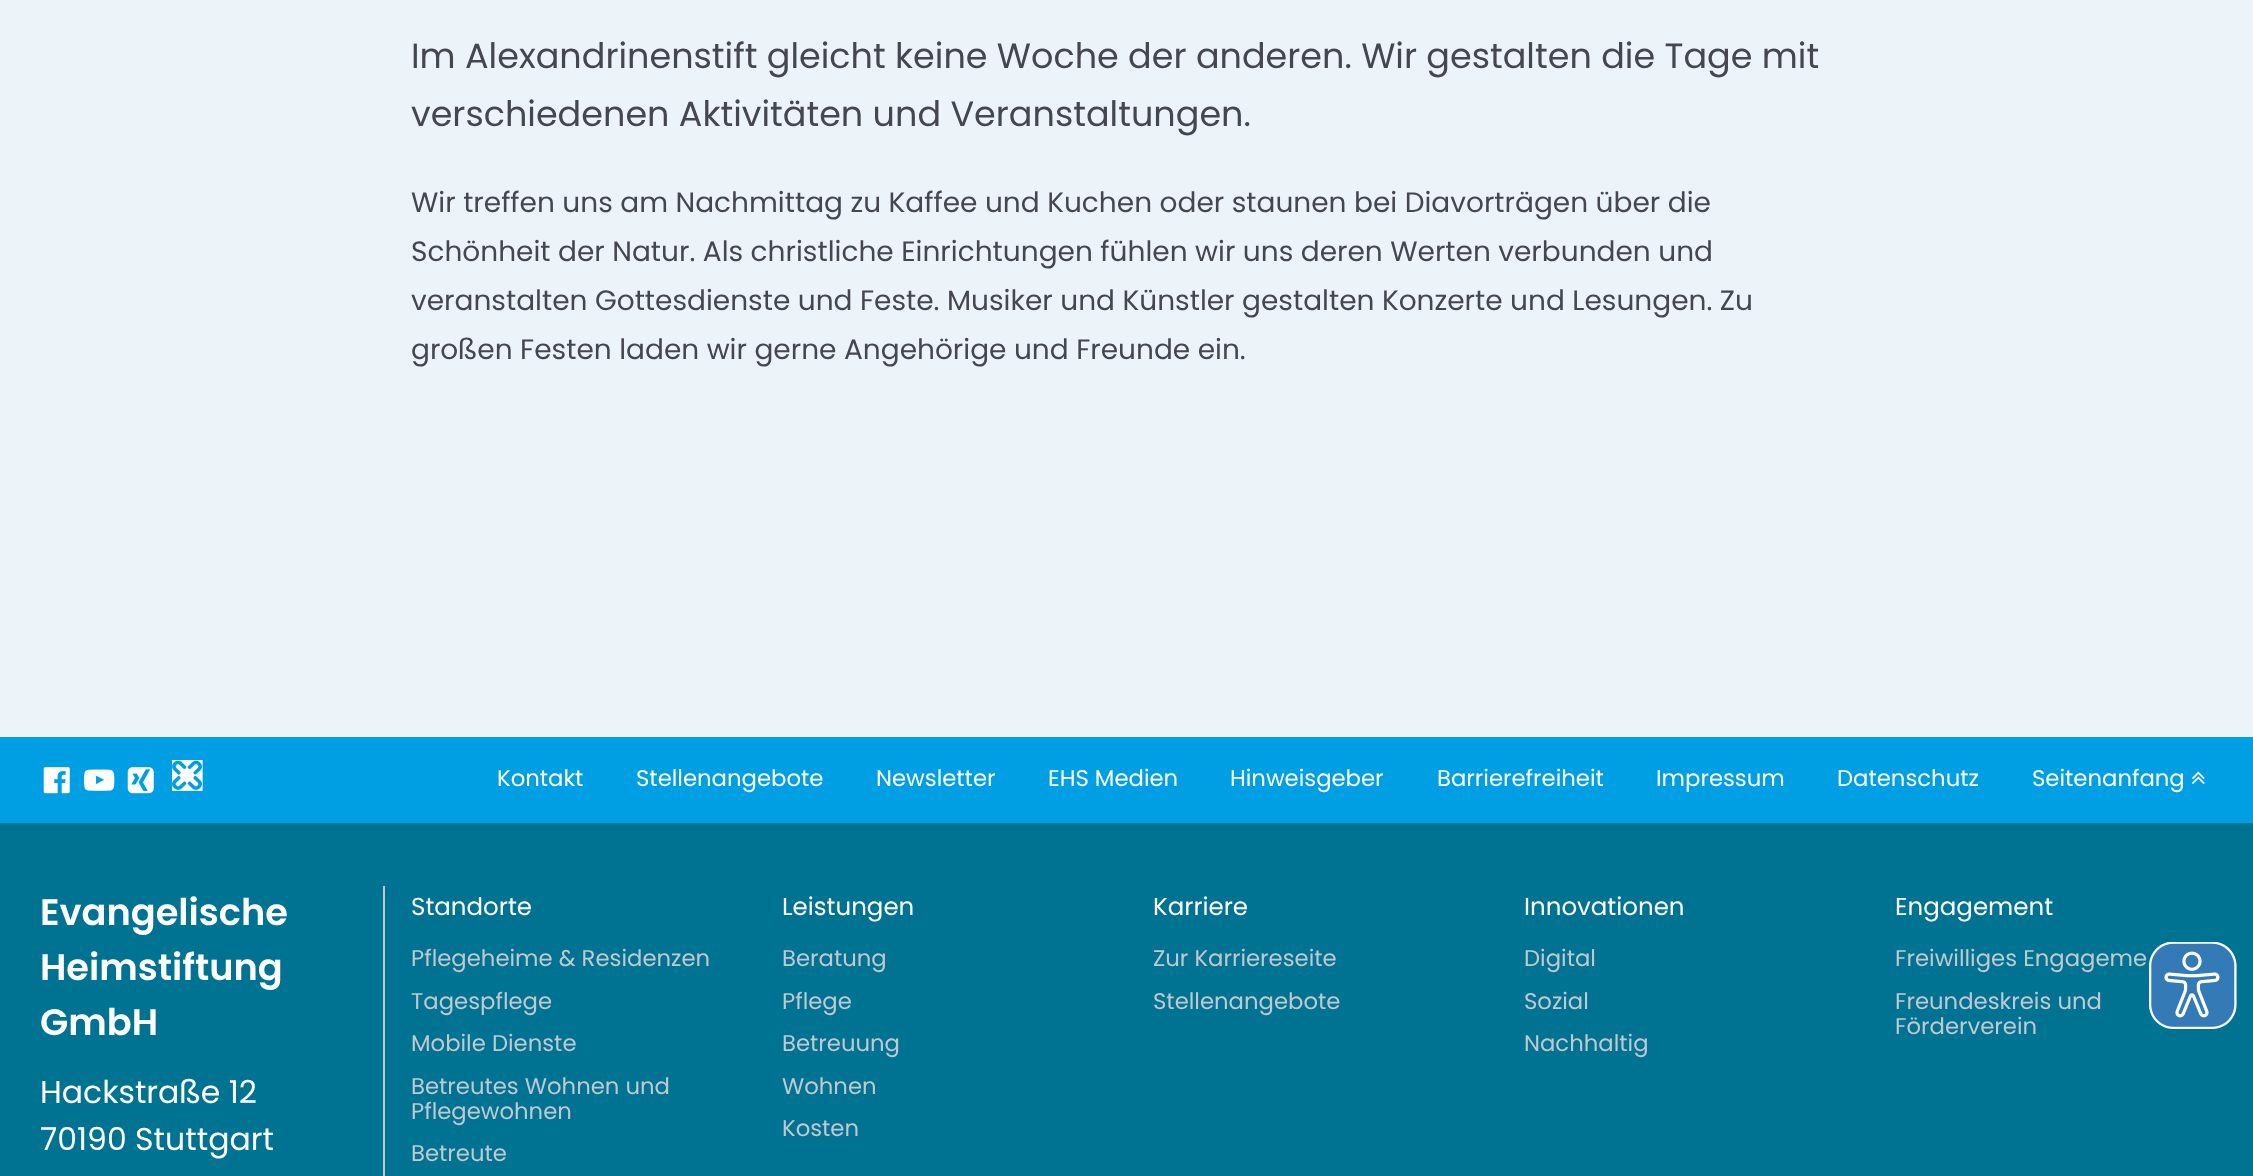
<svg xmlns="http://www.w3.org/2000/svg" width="2253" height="1176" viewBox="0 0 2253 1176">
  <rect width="100%" height="100%" fill="#ecf3f9"/>
  <path d="M0 737h2253v86H0z" fill="#009fe3"/>
  <image x="43" y="767" width="27" height="27" href="img/1.png"/>
  <image x="84" y="769" width="31" height="22" href="img/2.png"/>
  <image x="127" y="767" width="27" height="27" href="img/3.png"/>
  <image x="172" y="760" width="31" height="31" href="img/4.png"/>
  <image x="2192" y="771" width="13" height="13" href="img/5.png"/>
  <path d="M0 823h2253v353H0z" fill="#007292"/>
  <path d="M383 886h2v290H383z" fill="#c1c9d0"/>
  <image x="2149" y="942" width="88" height="87" href="img/6.png"/>
  <g font-family="Poppins" font-size="35" fill="#45464f">
    <text x="411" y="68">Im Alexandrinenstift gleicht keine Woche der anderen. Wir gestalten die Tage mit</text>
    <text x="411" y="126">verschiedenen Aktivitäten und Veranstaltungen.</text>
  </g>
  <g font-family="Poppins" font-size="28" fill="#45464f">
    <text x="411" y="212">Wir treffen uns am Nachmittag zu Kaffee und Kuchen oder staunen bei Diavorträgen über die</text>
    <text x="411" y="261">Schönheit der Natur. Als christliche Einrichtungen fühlen wir uns deren Werten verbunden und</text>
    <text x="411" y="310">veranstalten Gottesdienste und Feste. Musiker und Künstler gestalten Konzerte und Lesungen. Zu</text>
    <text x="411" y="359">großen Festen laden wir gerne Angehörige und Freunde ein.</text>
  </g>
  <g font-family="Poppins" font-size="22.75" fill="#fff">
    <text x="497" y="786">Kontakt</text>
    <text x="636" y="786">Stellenangebote</text>
    <text x="876" y="786">Newsletter</text>
    <text x="1048" y="786">EHS Medien</text>
    <text x="1230" y="786">Hinweisgeber</text>
    <text x="1437" y="786">Barrierefreiheit</text>
    <text x="1656" y="786">Impressum</text>
    <text x="1837" y="786">Datenschutz</text>
    <text x="2032" y="786">Seitenanfang</text>
  </g>
  <g font-family="Poppins" font-size="36.75" font-weight="600" fill="#fff">
    <text x="40" y="925">Evangelische</text>
    <text x="40" y="980">Heimstiftung</text>
    <text x="40" y="1035">GmbH</text>
  </g>
  <g font-family="Poppins" font-size="31.5" fill="#fff">
    <text x="40" y="1103">Hackstraße 12</text>
    <text x="40" y="1150">70190 Stuttgart</text>
  </g>
  <text x="411" y="915" font-family="Poppins" font-size="24.5" fill="#fff">Standorte</text>
  <g font-family="Poppins" font-size="22.75" fill="#c1c9d0">
    <text x="411" y="966">Pflegeheime &amp; Residenzen</text>
    <text x="411" y="1009">Tagespflege</text>
    <text x="411" y="1051">Mobile Dienste</text>
    <text x="411" y="1094">Betreutes Wohnen und</text>
    <text x="411" y="1119">Pflegewohnen</text>
    <text x="411" y="1161">Betreute</text>
  </g>
  <text x="782" y="915" font-family="Poppins" font-size="24.5" fill="#fff">Leistungen</text>
  <g font-family="Poppins" font-size="22.75" fill="#c1c9d0">
    <text x="782" y="966">Beratung</text>
    <text x="782" y="1009">Pflege</text>
    <text x="782" y="1051">Betreuung</text>
    <text x="782" y="1094">Wohnen</text>
    <text x="782" y="1136">Kosten</text>
  </g>
  <text x="1153" y="915" font-family="Poppins" font-size="24.5" fill="#fff">Karriere</text>
  <g font-family="Poppins" font-size="22.75" fill="#c1c9d0">
    <text x="1153" y="966">Zur Karriereseite</text>
    <text x="1153" y="1009">Stellenangebote</text>
  </g>
  <text x="1524" y="915" font-family="Poppins" font-size="24.5" fill="#fff">Innovationen</text>
  <g font-family="Poppins" font-size="22.75" fill="#c1c9d0">
    <text x="1524" y="966">Digital</text>
    <text x="1524" y="1009">Sozial</text>
    <text x="1524" y="1051">Nachhaltig</text>
  </g>
  <text x="1895" y="915" font-family="Poppins" font-size="24.5" fill="#fff">Engagement</text>
  <g font-family="Poppins" font-size="22.75" fill="#c1c9d0">
    <text x="1895" y="966">Freiwilliges Engageme</text>
    <text x="1895" y="1009">Freundeskreis und</text>
    <text x="1895" y="1034">Förderverein</text>
  </g>
</svg>
